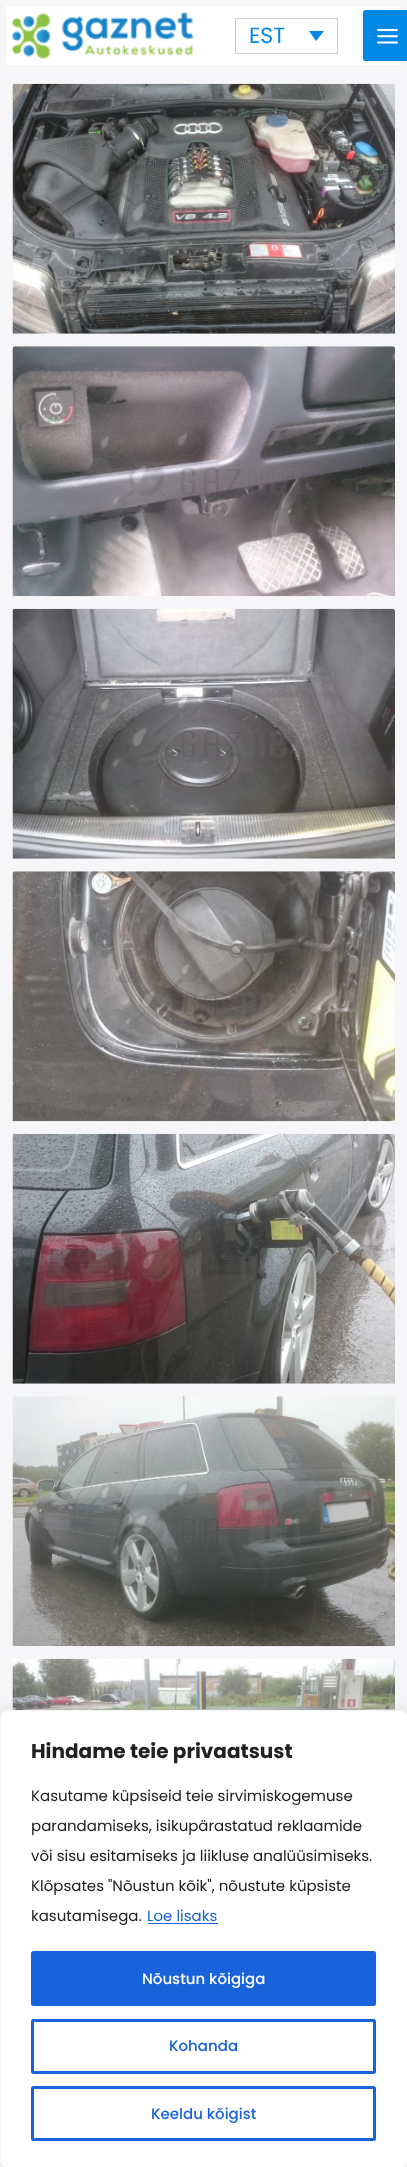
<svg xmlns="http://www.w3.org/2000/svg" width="407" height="2167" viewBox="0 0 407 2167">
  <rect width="100%" height="100%" fill="#f6f6f8"/>
  <path d="M6 6h395v59H6z" fill="#fff"/>
  <image x="11" y="12" width="183" height="47" href="img/1.png"/>
  <path d="M235.5 18.5h102v35H235.5z" fill="none" stroke="#cdcdcd"/>
  <path d="M309 31H324L316 41Z" fill="#0089e4"/>
  <rect x="363" y="10" width="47" height="51" rx="2.5" fill="#0089e4"/>
  <image x="377" y="28" width="21" height="16" href="img/2.png"/>
  <image x="12" y="83" width="383" height="251" href="img/3.png"/>
  <image x="12" y="346" width="383" height="251" href="img/4.png"/>
  <image x="12" y="608" width="383" height="251" href="img/5.png"/>
  <image x="12" y="871" width="383" height="251" href="img/6.png"/>
  <image x="12" y="1133" width="383" height="251" href="img/7.png"/>
  <image x="12" y="1396" width="383" height="251" href="img/8.png"/>
  <image x="12" y="1658" width="383" height="52" href="img/9.png"/>
  <rect y="1709" width="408" height="457" rx="8" fill="#acabab4d" filter="blur(6px)"/>
  <rect x="0.5" y="1710.5" width="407" height="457" rx="7.5" fill="#fff" stroke="#f4f4f4"/>
  <path d="M148 1923h70v1H148z" fill="#1863dc"/>
  <rect x="32.5" y="1952.5" width="342" height="52" rx="1" fill="#1863dc" stroke="#1863dc" stroke-width="3"/>
  <rect x="32.5" y="2020.5" width="342" height="52" rx="1" fill="none" stroke="#1863dc" stroke-width="3"/>
  <rect x="32.5" y="2087.5" width="342" height="52" rx="1" fill="none" stroke="#1863dc" stroke-width="3"/>
  <text x="249" y="43" font-family="Poppins" font-size="22" fill="#0089e4">EST</text>
  <text x="31" y="1758" font-family="Poppins" font-size="20" font-weight="bold" fill="#212121">Hindame teie privaatsust</text>
  <g font-family="Poppins" font-size="15" fill="#212121">
    <text x="31" y="1801">Kasutame küpsiseid teie sirvimiskogemuse</text>
    <text x="31" y="1831">parandamiseks, isikupärastatud reklaamide</text>
    <text x="31" y="1861">või sisu esitamiseks ja liikluse analüüsimiseks.</text>
    <text x="31" y="1891">Klõpsates "Nõustun kõik", nõustute küpsiste</text>
    <text x="31" y="1921">kasutamisega.</text>
  </g>
  <text x="147" y="1921" font-family="Poppins" font-size="15" fill="#1863dc">Loe lisaks</text>
  <text x="142" y="1984" font-family="Poppins" font-size="15" font-weight="500" fill="#fff">Nõustun kõigiga</text>
  <g font-family="Poppins" font-size="15" font-weight="500" fill="#1863dc">
    <text x="169" y="2051">Kohanda</text>
    <text x="151" y="2119">Keeldu kõigist</text>
  </g>
</svg>
